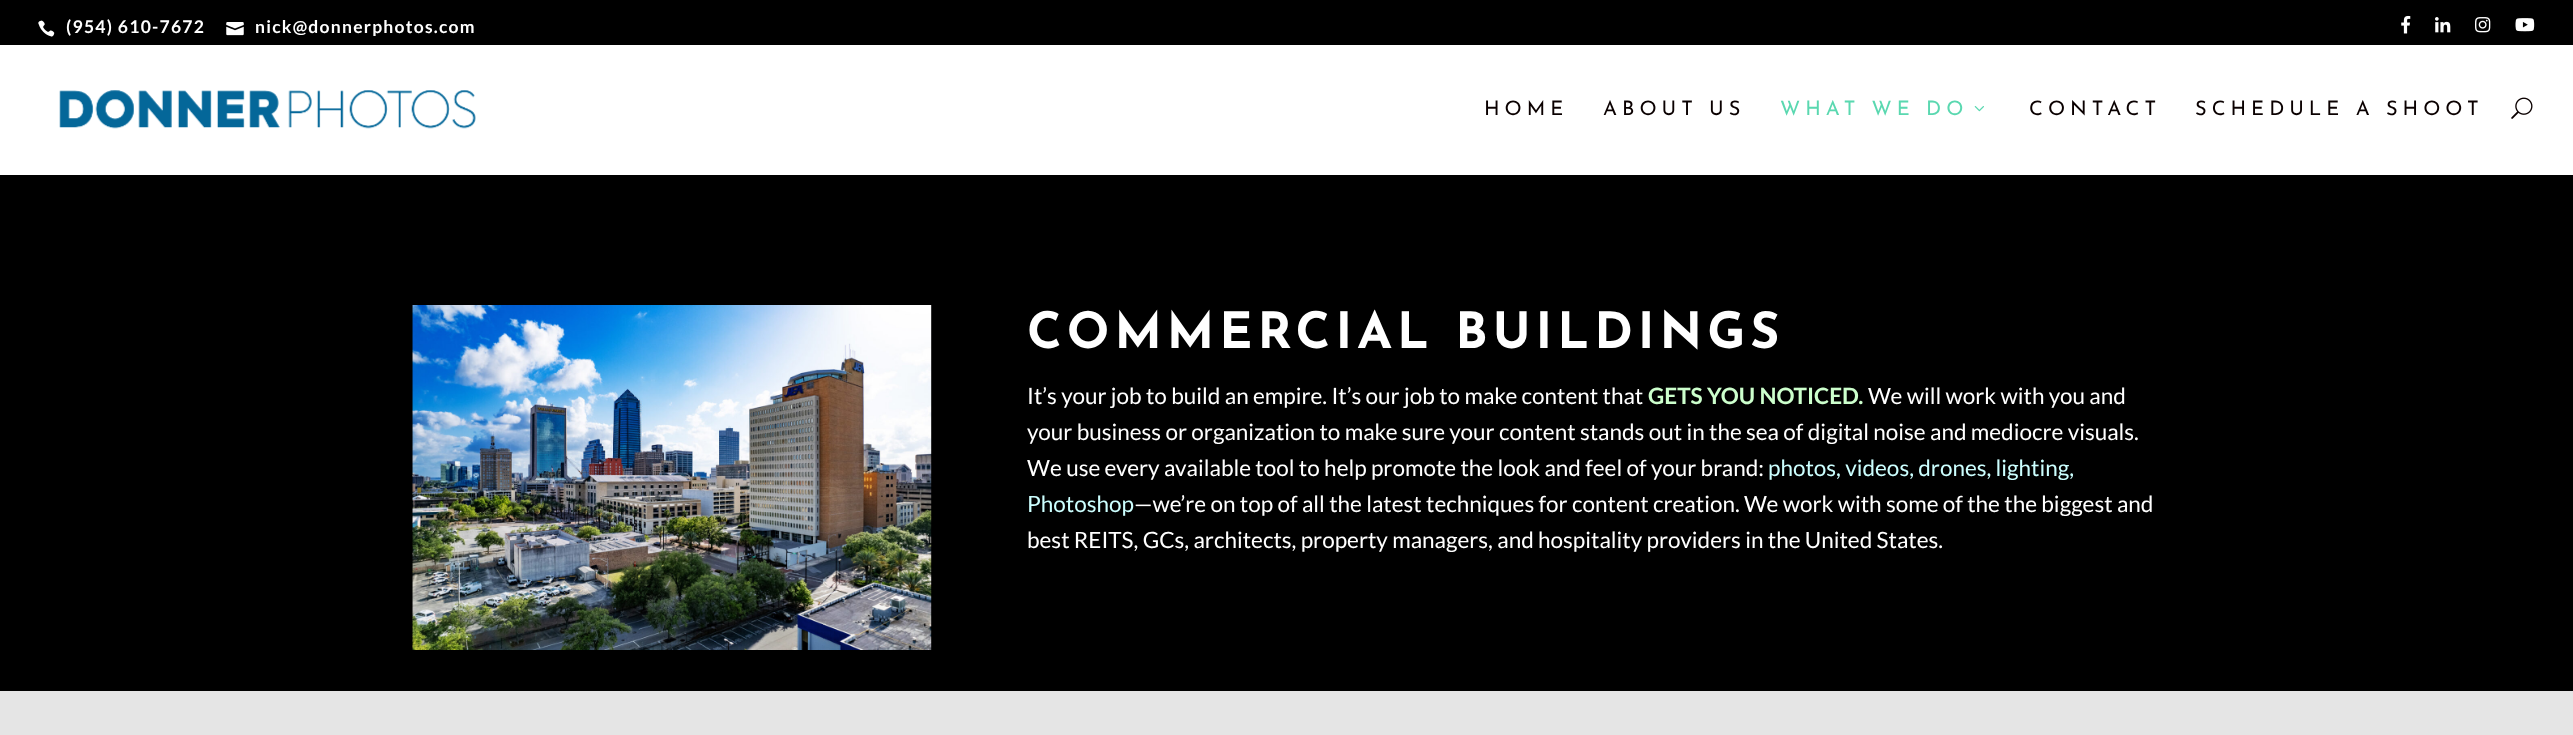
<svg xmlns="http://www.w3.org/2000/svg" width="2573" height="735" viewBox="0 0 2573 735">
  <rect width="100%" height="100%" fill="#000"/>
  <image x="38" y="20" width="17" height="17" href="img/1.png"/>
  <image x="226" y="22" width="18" height="14" href="img/2.png"/>
  <image x="2401" y="15" width="10" height="19" href="img/3.png"/>
  <image x="2435" y="17" width="16" height="16" href="img/4.png"/>
  <image x="2475" y="17" width="16" height="16" href="img/5.png"/>
  <image x="2515" y="18" width="20" height="14" href="img/6.png"/>
  <path d="M0 45h2573v130H0z" fill="#fff"/>
  <image x="59" y="90" width="417" height="39" href="img/7.png"/>
  <image x="1974" y="106" width="10" height="6" href="img/8.png"/>
  <image x="2511" y="97" width="22" height="22" href="img/9.png"/>
  <path d="M0 691h2573v44H0z" fill="#e5e5e5"/>
  <image x="412" y="305" width="520" height="345" href="img/10.png"/>
  <g font-family="Lato" font-size="17.5" font-weight="bold" letter-spacing="1.25" fill="#fff">
    <text x="66" y="33">(954) 610-7672</text>
    <text x="255" y="33">nick@donnerphotos.com</text>
  </g>
  <g font-family="Josefin Sans" font-size="20" letter-spacing="5" fill="#0a0000">
    <text x="1484" y="115">HOME</text>
    <text x="1603" y="115">ABOUT US</text>
  </g>
  <text x="1780" y="115" font-family="Josefin Sans" font-size="20" letter-spacing="5" fill="#5ad8b0">WHAT WE DO</text>
  <g font-family="Josefin Sans" font-size="20" letter-spacing="5" fill="#0a0000">
    <text x="2029" y="115">CONTACT</text>
    <text x="2195" y="115">SCHEDULE A SHOOT</text>
  </g>
  <text x="1027" y="348" font-family="Josefin Sans" font-size="50" font-weight="bold" letter-spacing="5" fill="#fff">COMMERCIAL BUILDINGS</text>
  <text x="1027" y="404" font-family="Lato" font-size="22.5" fill="#fff">It’s your job to build an empire. It’s our job to make content that</text>
  <text x="1648" y="404" font-family="Lato" font-size="22.5" font-weight="bold" fill="#cfc">GETS YOU NOTICED.</text>
  <g font-family="Lato" font-size="22.5" fill="#fff">
    <text x="1868" y="404">We will work with you and</text>
    <text x="1027" y="440">your business or organization to make sure your content stands out in the sea of digital noise and mediocre visuals.</text>
    <text x="1027" y="476">W</text>
    <text x="1050" y="476">e use every available tool to help promote the look and feel of your brand:</text>
  </g>
  <g font-family="Lato" font-size="22.5" fill="#cff">
    <text x="1768" y="476">photos, videos, drones, lighting,</text>
    <text x="1027" y="512">Photoshop</text>
  </g>
  <g font-family="Lato" font-size="22.5" fill="#fff">
    <text x="1134" y="512">—we’re on top of all the latest techniques for content creation. We work with some of the the biggest and</text>
    <text x="1027" y="548">best REITS, GCs, architects, property managers, and hospitality providers in the United States.</text>
  </g>
</svg>
